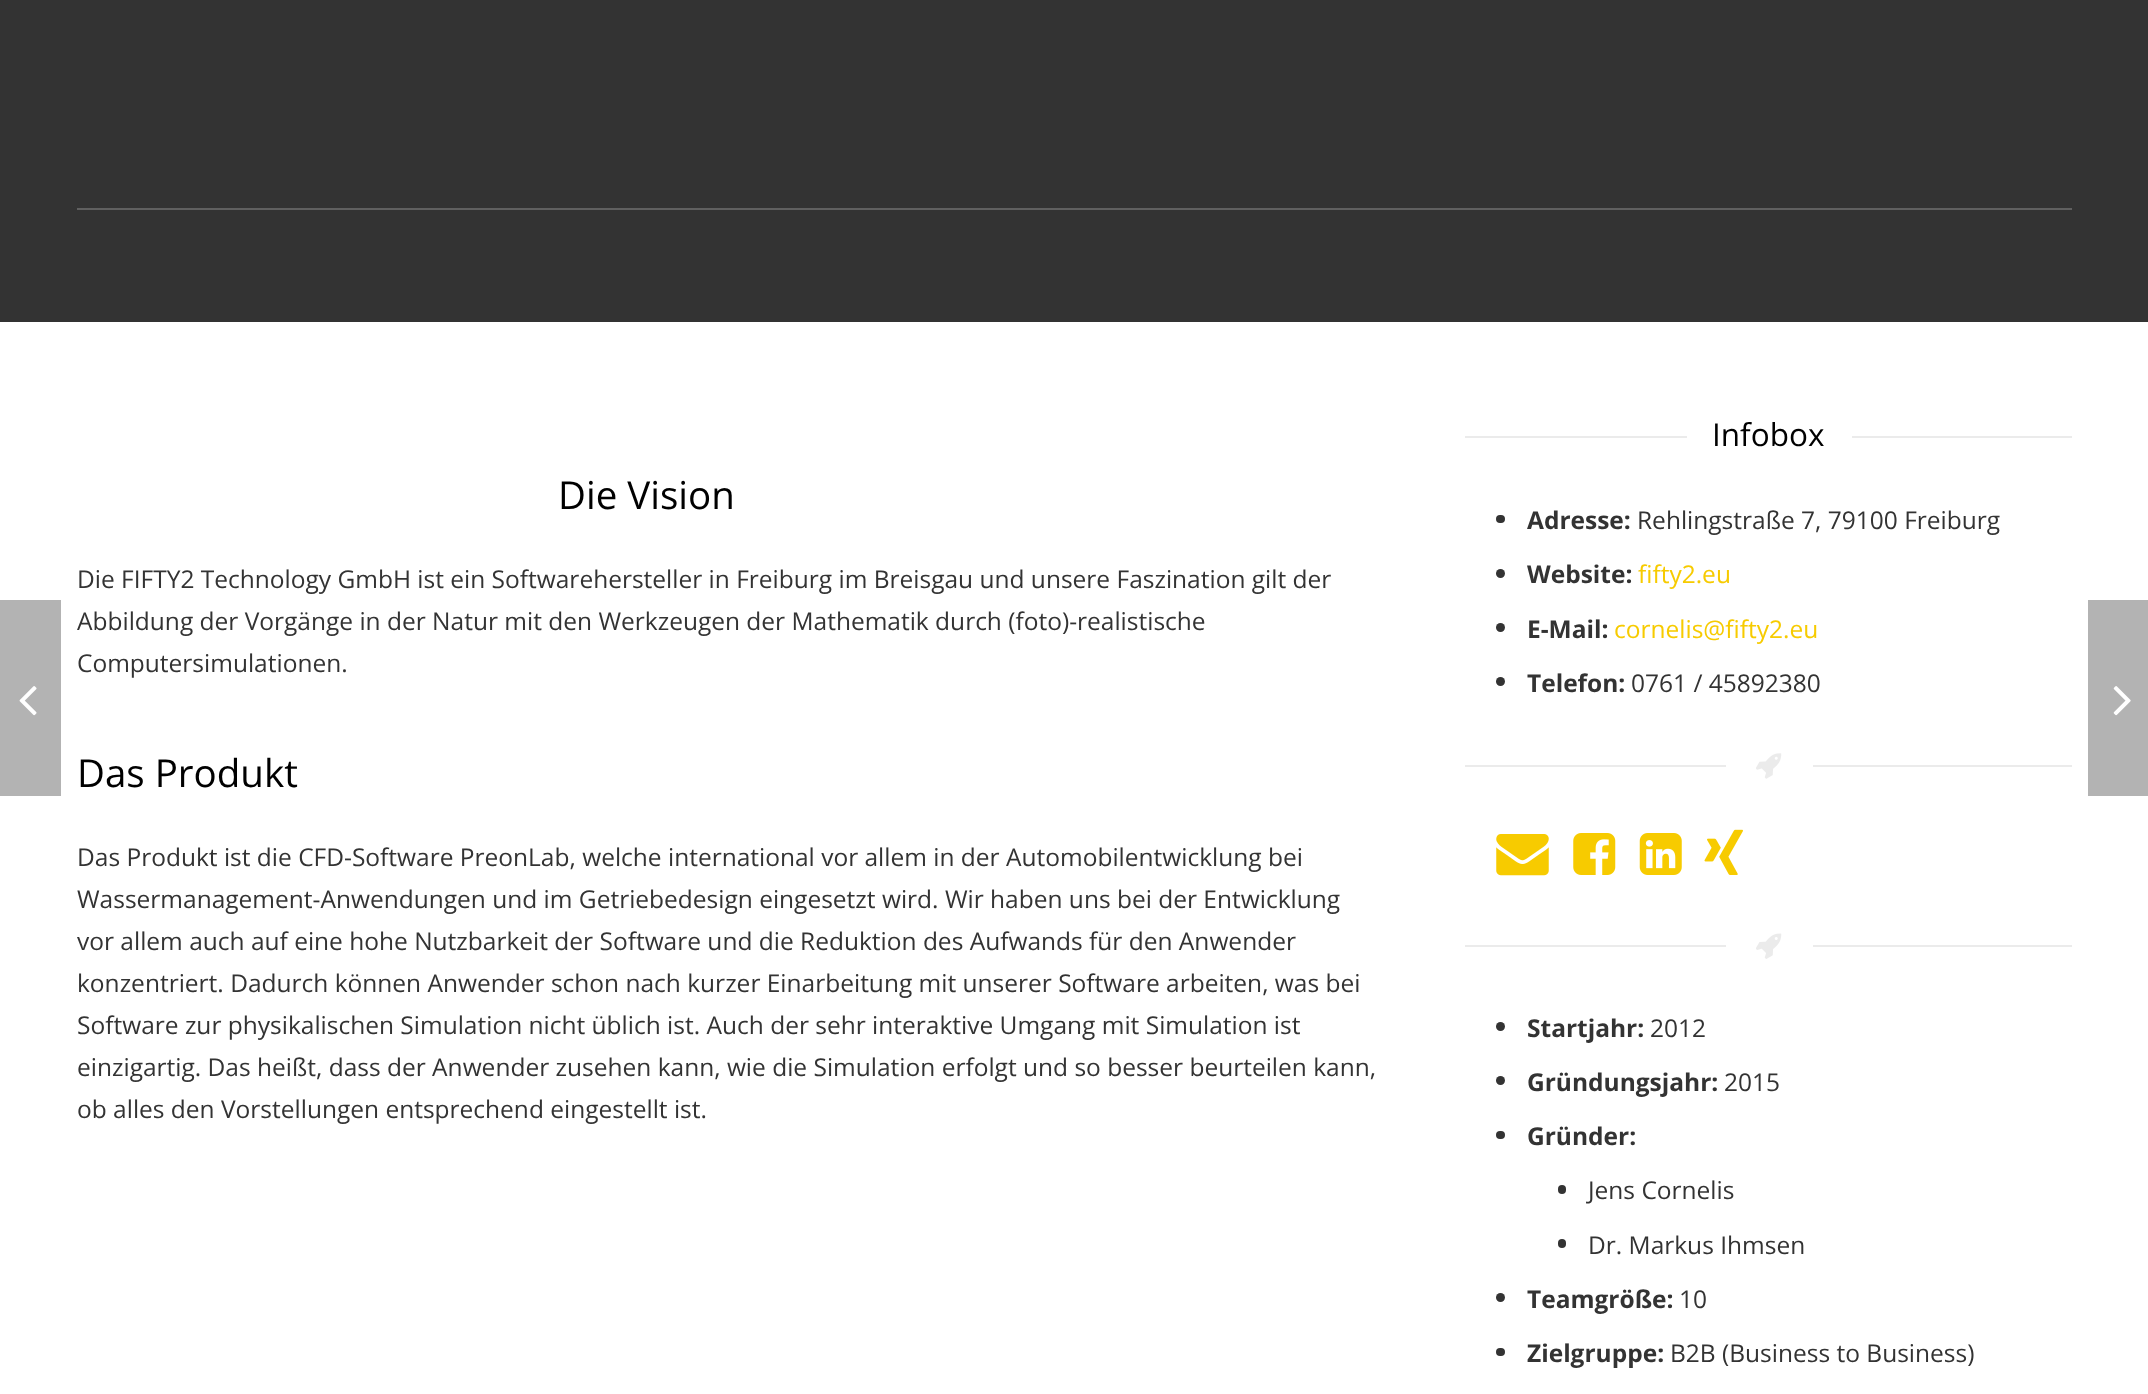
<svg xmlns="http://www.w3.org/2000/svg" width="2148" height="1394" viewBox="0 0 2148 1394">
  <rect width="100%" height="100%" fill="#fff"/>
  <path d="M0 0h2148v322H0z" fill="#333"/>
  <path d="M77 208h1995v2H77z" fill="#606060"/>
  <path d="M1465 436h222v2H1465z" fill="#ebebeb"/>
  <path d="M1852 436h220v2H1852z" fill="#ebebeb"/>
  <rect x="1496" y="515" width="9" height="8" rx="4" fill="#333"/>
  <circle cx="1500.5" cy="573.5" r="4.5" fill="#333"/>
  <circle cx="1500.5" cy="627.5" r="4.5" fill="#333"/>
  <circle cx="1500.5" cy="681.5" r="4.5" fill="#333"/>
  <path d="M1465 765h261v2H1465z" fill="#ebebeb"/>
  <image x="1756" y="753" width="26" height="26" href="img/1.png"/>
  <path d="M1813 765h259v2H1813z" fill="#ebebeb"/>
  <image x="1496" y="834" width="53" height="42" href="img/2.png"/>
  <image x="1573" y="833" width="43" height="42" href="img/3.png"/>
  <image x="1639" y="833" width="43" height="42" href="img/4.png"/>
  <image x="1704" y="829" width="39" height="46" href="img/5.png"/>
  <path d="M1465 945h261v2H1465z" fill="#ebebeb"/>
  <image x="1756" y="933" width="26" height="26" href="img/6.png"/>
  <path d="M1813 945h259v2H1813z" fill="#ebebeb"/>
  <circle cx="1500.5" cy="1026.5" r="4.5" fill="#333"/>
  <circle cx="1500.5" cy="1080.5" r="4.5" fill="#333"/>
  <rect x="1496" y="1131" width="9" height="8" rx="4" fill="#333"/>
  <rect x="1558" y="1185" width="8" height="9" rx="4" fill="#333"/>
  <rect x="1558" y="1239" width="8" height="9" rx="4" fill="#333"/>
  <circle cx="1500.5" cy="1297.5" r="4.5" fill="#333"/>
  <rect x="1496" y="1348" width="9" height="8" rx="4" fill="#333"/>
  <path d="M0 600h61v196H0z" fill="#b3b3b3"/>
  <image x="19" y="686" width="18" height="30" href="img/7.png"/>
  <path d="M2088 600h60v196H2088z" fill="#b3b3b3"/>
  <image x="2113" y="686" width="18" height="30" href="img/8.png"/>
  <text x="558" y="509" font-family="Open Sans" font-size="38.5" fill="#000">Die Vision</text>
  <g font-family="Open Sans" font-size="24.5" fill="#333">
    <text x="77" y="588">Die FIFTY2 Technology GmbH ist ein Softwarehersteller in Freiburg im Breisgau und unsere Faszination gilt der</text>
    <text x="77" y="630">Abbildung der Vorgänge in der Natur mit den Werkzeugen der Mathematik durch (foto)-realistische</text>
    <text x="77" y="672">Computersimulationen.</text>
  </g>
  <text x="77" y="787" font-family="Open Sans" font-size="38.5" fill="#000">Das Produkt</text>
  <g font-family="Open Sans" font-size="24.5" fill="#333">
    <text x="77" y="866">Das Produkt ist die CFD-Software PreonLab, welche international vor allem in der Automobilentwicklung bei</text>
    <text x="77" y="908">Wassermanagement-Anwendungen und im Getriebedesign eingesetzt wird. Wir haben uns bei der Entwicklung</text>
    <text x="77" y="950">vor allem auch auf eine hohe Nutzbarkeit der Software und die Reduktion des Aufwands für den Anwender</text>
    <text x="77" y="992">konzentriert. Dadurch können Anwender schon nach kurzer Einarbeitung mit unserer Software arbeiten, was bei</text>
    <text x="77" y="1034">Software zur physikalischen Simulation nicht üblich ist. Auch der sehr interaktive Umgang mit Simulation ist</text>
    <text x="77" y="1076">einzigartig. Das heißt, dass der Anwender zusehen kann, wie die Simulation erfolgt und so besser beurteilen kann,</text>
    <text x="77" y="1118">ob alles den Vorstellungen entsprechend eingestellt ist.</text>
  </g>
  <text x="1712" y="446" font-family="Open Sans" font-size="31.5" fill="#000">Infobox</text>
  <text x="1527" y="529" font-family="Open Sans" font-size="24.5" font-weight="bold" fill="#333">Adresse:</text>
  <text x="1637" y="529" font-family="Open Sans" font-size="24.5" fill="#333">Rehlingstraße 7, 79100 Freiburg</text>
  <text x="1527" y="583" font-family="Open Sans" font-size="24.5" font-weight="bold" fill="#333">Website:</text>
  <text x="1638" y="583" font-family="Open Sans" font-size="24.5" fill="#f7cb00">fifty2.eu</text>
  <text x="1527" y="638" font-family="Open Sans" font-size="24.5" font-weight="bold" fill="#333">E-Mail:</text>
  <text x="1614" y="638" font-family="Open Sans" font-size="24.5" fill="#f7cb00">cornelis@fifty2.eu</text>
  <text x="1527" y="692" font-family="Open Sans" font-size="24.5" font-weight="bold" fill="#333">Telefon:</text>
  <text x="1631" y="692" font-family="Open Sans" font-size="24.5" fill="#333">0761 / 45892380</text>
  <text x="1527" y="1037" font-family="Open Sans" font-size="24.5" font-weight="bold" fill="#333">Startjahr:</text>
  <text x="1650" y="1037" font-family="Open Sans" font-size="24.5" fill="#333">2012</text>
  <text x="1527" y="1091" font-family="Open Sans" font-size="24.5" font-weight="bold" fill="#333">Gründungsjahr:</text>
  <text x="1724" y="1091" font-family="Open Sans" font-size="24.5" fill="#333">2015</text>
  <text x="1527" y="1145" font-family="Open Sans" font-size="24.5" font-weight="bold" fill="#333">Gründer:</text>
  <g font-family="Open Sans" font-size="24.5" fill="#333">
    <text x="1588" y="1199">Jens Cornelis</text>
    <text x="1588" y="1254">Dr. Markus Ihmsen</text>
  </g>
  <text x="1527" y="1308" font-family="Open Sans" font-size="24.5" font-weight="bold" fill="#333">Teamgröße:</text>
  <text x="1679" y="1308" font-family="Open Sans" font-size="24.5" fill="#333">10</text>
  <text x="1527" y="1362" font-family="Open Sans" font-size="24.5" font-weight="bold" fill="#333">Zielgruppe:</text>
  <text x="1670" y="1362" font-family="Open Sans" font-size="24.5" fill="#333">B2B (Business to Business)</text>
</svg>
